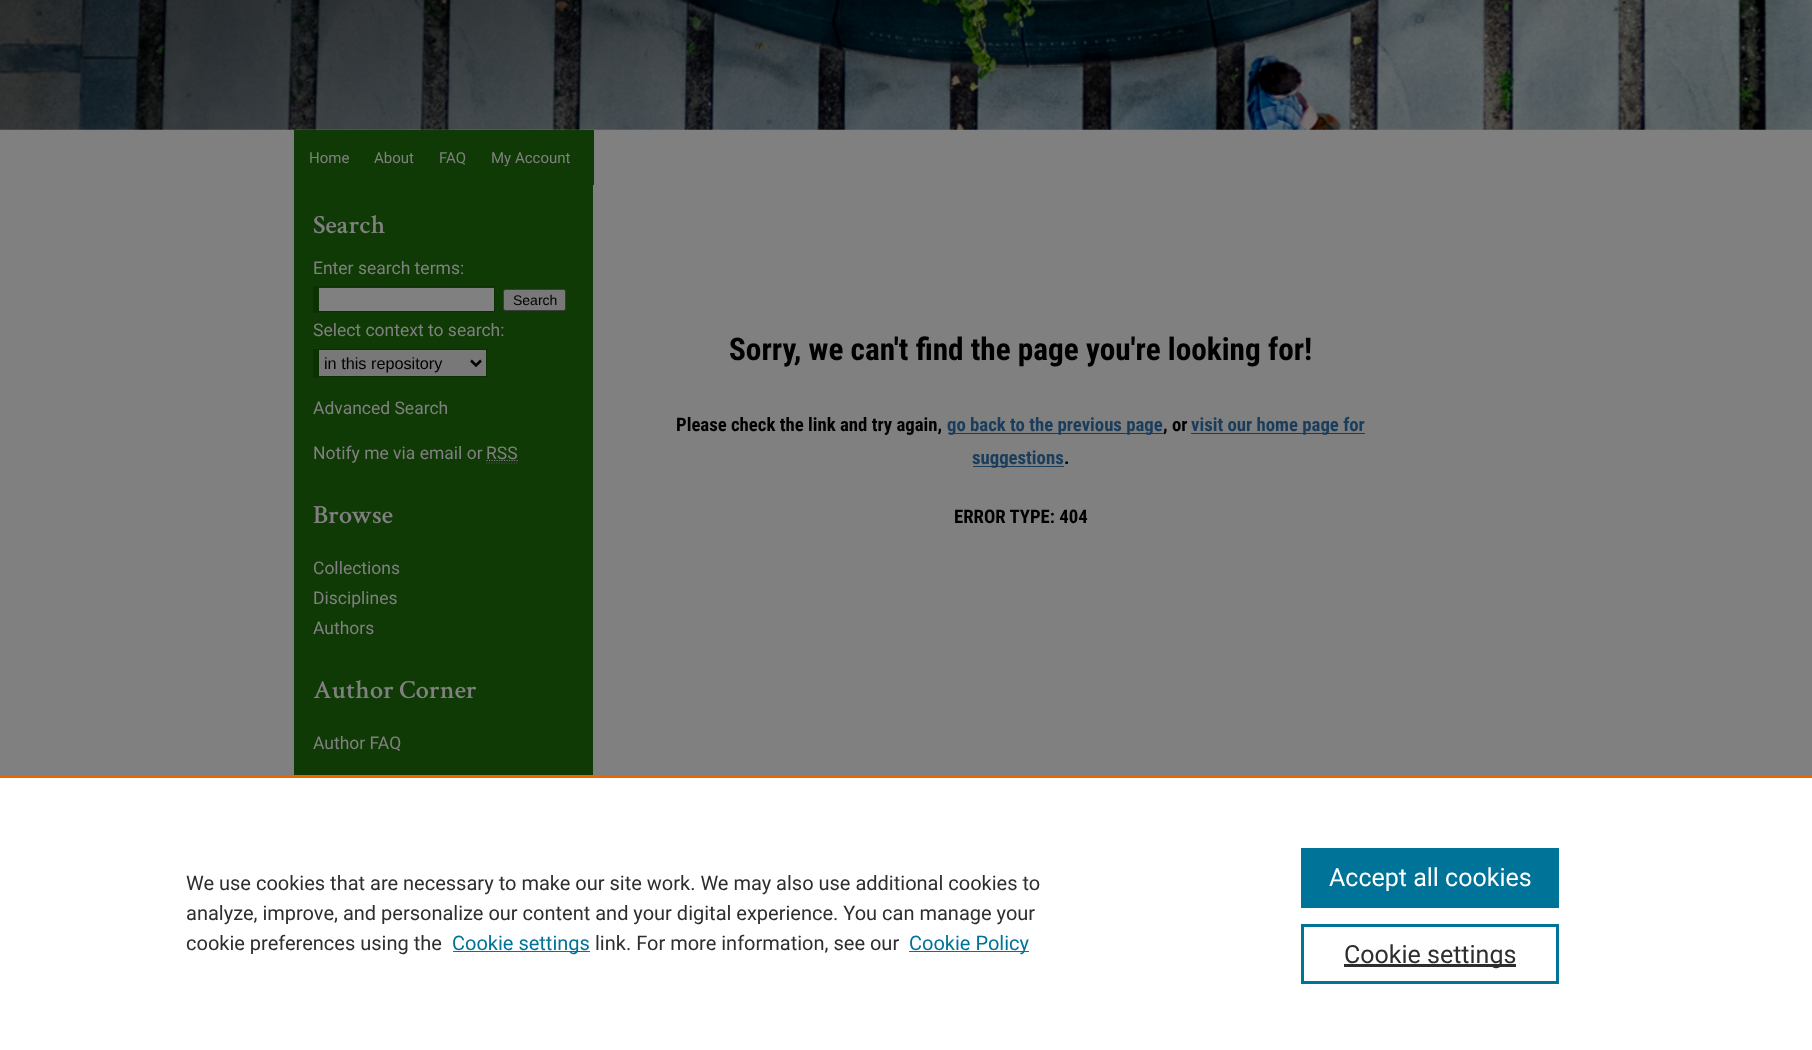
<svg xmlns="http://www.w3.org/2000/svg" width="1812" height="1050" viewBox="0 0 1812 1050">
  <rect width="100%" height="100%" fill="#808080"/>
  <image x="0" y="0" width="1812" height="130" href="img/1.png"/>
  <path d="M294 130h300v55H294z" fill="#0f3a05"/>
  <path d="M294 185h299v590H294z" fill="#0f3a05"/>
  <path d="M319 288h175v23H319z" fill="#808080"/>
  <path d="M313 286h182v1H313z" fill="#0d2f04"/>
  <path d="M494 286h1v27H494z" fill="#0d2f04"/>
  <path d="M313 311h182v1H313z" fill="#0d2f04"/>
  <path d="M313 286h6v27H313z" fill="#0d2f04"/>
  <rect x="503.5" y="289.5" width="62" height="21" rx="2" fill="#787878" stroke="#3b3b3b"/>
  <path d="M319 350h167v26H319z" fill="#787878"/>
  <path d="M313 349h175v1H313z" fill="#0d2f04"/>
  <path d="M486 349h1v29H486z" fill="#0d2f04"/>
  <path d="M313 376h175v1H313z" fill="#0d2f04"/>
  <path d="M313 349h6v29H313z" fill="#0d2f04"/>
  <path d="M471 360.5L476 365.5L481 360.5" fill="none" stroke="#000" stroke-width="2.5"/>
  <path d="M486 463H517.5" fill="none" stroke="#4d4d4d" stroke-width="1.2" stroke-dasharray="1.25 1.25"/>
  <path d="M486.5 460.5H518" fill="none" stroke="#808080" stroke-width="1.2" stroke-dasharray="1.25 1.25"/>
  <path d="M948 433h215v1H948z" fill="#1a3d5c"/>
  <path d="M1191 433h174v1H1191z" fill="#1a3d5c"/>
  <path d="M973 466h91v1H973z" fill="#1a3d5c"/>
  <path d="M0 778h1812v272H0z" fill="#fff"/>
  <path d="M0 775h1812v3H0z" fill="#eb6500"/>
  <path d="M453 951h137v1H453z" fill="#007398"/>
  <path d="M909 951h120v1H909z" fill="#007398"/>
  <path d="M1301 848h258v60H1301z" fill="#007398"/>
  <path d="M1302.5 925.5h255v57H1302.5z" fill="none" stroke="#007398" stroke-width="3"/>
  <path d="M1344 964h172v3H1344z" fill="#2e2e2e"/>
  <g font-family="Roboto" font-size="15" fill="#808080">
    <text x="309" y="163">Home</text>
    <text x="374" y="163">About</text>
    <text x="439" y="163">FAQ</text>
    <text x="491" y="163">My Account</text>
  </g>
  <text x="313" y="233" font-family="Crimson Text" font-size="26.25" font-weight="600" fill="#808080">Search</text>
  <text x="313" y="274" font-family="Roboto" font-size="17.5" fill="#808080">Enter search terms:</text>
  <text x="513" y="305" font-family="Liberation Sans" font-size="14" fill="#000">Search</text>
  <text x="313" y="336" font-family="Roboto" font-size="17.5" fill="#808080">Select context to search:</text>
  <text x="324" y="369" font-family="Liberation Sans" font-size="16.25" fill="#000">in this repository</text>
  <g font-family="Roboto" font-size="17.5" fill="#808080">
    <text x="313" y="414">Advanced Search</text>
    <text x="313" y="459">Notify me via email or</text>
    <text x="486" y="459">RSS</text>
  </g>
  <text x="313" y="523" font-family="Crimson Text" font-size="26.25" font-weight="600" fill="#808080">Browse</text>
  <g font-family="Roboto" font-size="17.5" fill="#808080">
    <text x="313" y="574">Collections</text>
    <text x="313" y="604">Disciplines</text>
    <text x="313" y="634">Authors</text>
  </g>
  <text x="313" y="698" font-family="Crimson Text" font-size="26.25" font-weight="600" fill="#808080">Author Corner</text>
  <text x="313" y="749" font-family="Roboto" font-size="17.5" fill="#808080">Author FAQ</text>
  <text x="729" y="360" font-family="Roboto Condensed" font-size="31.25" font-weight="bold" fill="#000">Sorry, we can't find the page you're looking for!</text>
  <text x="676" y="431" font-family="Roboto Condensed" font-size="18.75" font-weight="bold" fill="#000">Please check the link and try again,</text>
  <text x="947" y="431" font-family="Roboto Condensed" font-size="18.75" font-weight="bold" fill="#1a3d5c">go back to the previous page</text>
  <text x="1163" y="431" font-family="Roboto Condensed" font-size="18.75" font-weight="bold" fill="#000">, or</text>
  <g font-family="Roboto Condensed" font-size="18.75" font-weight="bold" fill="#1a3d5c">
    <text x="1191" y="431">visit our home page for</text>
    <text x="972" y="464">suggestions</text>
  </g>
  <g font-family="Roboto Condensed" font-size="18.75" font-weight="bold" fill="#000">
    <text x="1064" y="464">.</text>
    <text x="954" y="523">ERROR TYPE: 404</text>
  </g>
  <g font-family="Roboto" font-size="20" fill="#2e2e2e">
    <text x="186" y="890">We use cookies that are necessary to make our site work. We may also use additional cookies to</text>
    <text x="186" y="920">analyze, improve, and personalize our content and your digital experience. You can manage your</text>
    <text x="186" y="950">cookie preferences using the</text>
  </g>
  <text x="452" y="950" font-family="Roboto" font-size="20" fill="#007398">Cookie settings</text>
  <text x="595" y="950" font-family="Roboto" font-size="20" fill="#2e2e2e">link. For more information, see our</text>
  <text x="909" y="950" font-family="Roboto" font-size="20" fill="#007398">Cookie Policy</text>
  <text x="1329" y="886" font-family="Roboto" font-size="25" fill="#fff">Accept all cookies</text>
  <text x="1344" y="963" font-family="Roboto" font-size="25" fill="#2e2e2e">Cookie settings</text>
</svg>
